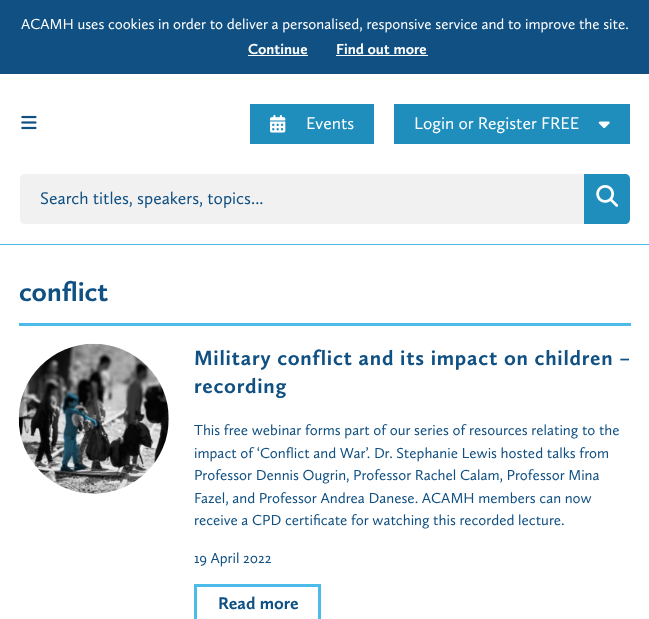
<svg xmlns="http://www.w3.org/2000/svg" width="649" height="619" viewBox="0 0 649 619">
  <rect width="100%" height="100%" fill="#fff"/>
  <path d="M0 0h649v74H0z" fill="#105082"/>
  <path d="M248 55h60v1H248z" fill="#fff"/>
  <path d="M336 55h92v1H336z" fill="#fff"/>
  <image x="21" y="115" width="16" height="15" href="img/1.png"/>
  <path d="M250 104h124v40H250z" fill="#208ebd"/>
  <image x="270" y="115" width="16" height="18" href="img/2.png"/>
  <path d="M394 104h236v40H394z" fill="#208ebd"/>
  <image x="598" y="121" width="12" height="8" href="img/3.png"/>
  <path d="M25 174H584V224H25C22 224 20 222 20 219V179C20 176 22 174 25 174Z" fill="#f1f1f1"/>
  <path d="M584 174H625C628 174 630 176 630 179V219C630 222 628 224 625 224H584Z" fill="#208ebd"/>
  <image x="596" y="185" width="23" height="22" href="img/4.png"/>
  <path d="M0 244h649v1H0z" fill="#4dbbe9"/>
  <path d="M19 323h612v3H19z" fill="#4dbbe9"/>
  <image x="18" y="343" width="151" height="151" href="img/5.png"/>
  <path d="M195.5 585.5h124v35H195.5z" fill="none" stroke="#4dbbe9" stroke-width="3"/>
  <text x="21" y="29" font-family="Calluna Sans" font-size="15" fill="#fff">ACAMH uses cookies in order to deliver a personalised, responsive service and to improve the site.</text>
  <g font-family="Calluna Sans" font-size="15" font-weight="bold" fill="#fff">
    <text x="248" y="54">Continue</text>
    <text x="336" y="54">Find out more</text>
  </g>
  <g font-family="Calluna Sans" font-size="17.5" fill="#fff">
    <text x="306" y="129">Events</text>
    <text x="414" y="129">Login or Register FREE</text>
  </g>
  <text x="40" y="204" font-family="Calluna Sans" font-size="17.5" fill="#105082">Search titles, speakers, topics...</text>
  <text x="19" y="301" font-family="Calluna Sans" font-size="27.5" font-weight="bold" fill="#105082">conflict</text>
  <g font-family="Calluna Sans" font-size="21.25" font-weight="bold" letter-spacing="0.75" fill="#105082">
    <text x="194" y="365">Military conflict and its impact on children –</text>
    <text x="194" y="393">recording</text>
  </g>
  <g font-family="Calluna Sans" font-size="15" fill="#105082">
    <text x="194" y="435">This free webinar forms part of our series of resources relating to the</text>
    <text x="194" y="458">impact of ‘Conflict and War’. Dr. Stephanie Lewis hosted talks from</text>
    <text x="194" y="480">Professor Dennis Ougrin, Professor Rachel Calam, Professor Mina</text>
    <text x="194" y="503">Fazel, and Professor Andrea Danese. ACAMH members can now</text>
    <text x="194" y="525">receive a CPD certificate for watching this recorded lecture.</text>
    <text x="194" y="563">19 April 2022</text>
  </g>
  <text x="218" y="609" font-family="Calluna Sans" font-size="17.5" font-weight="bold" fill="#105082">Read more</text>
</svg>
